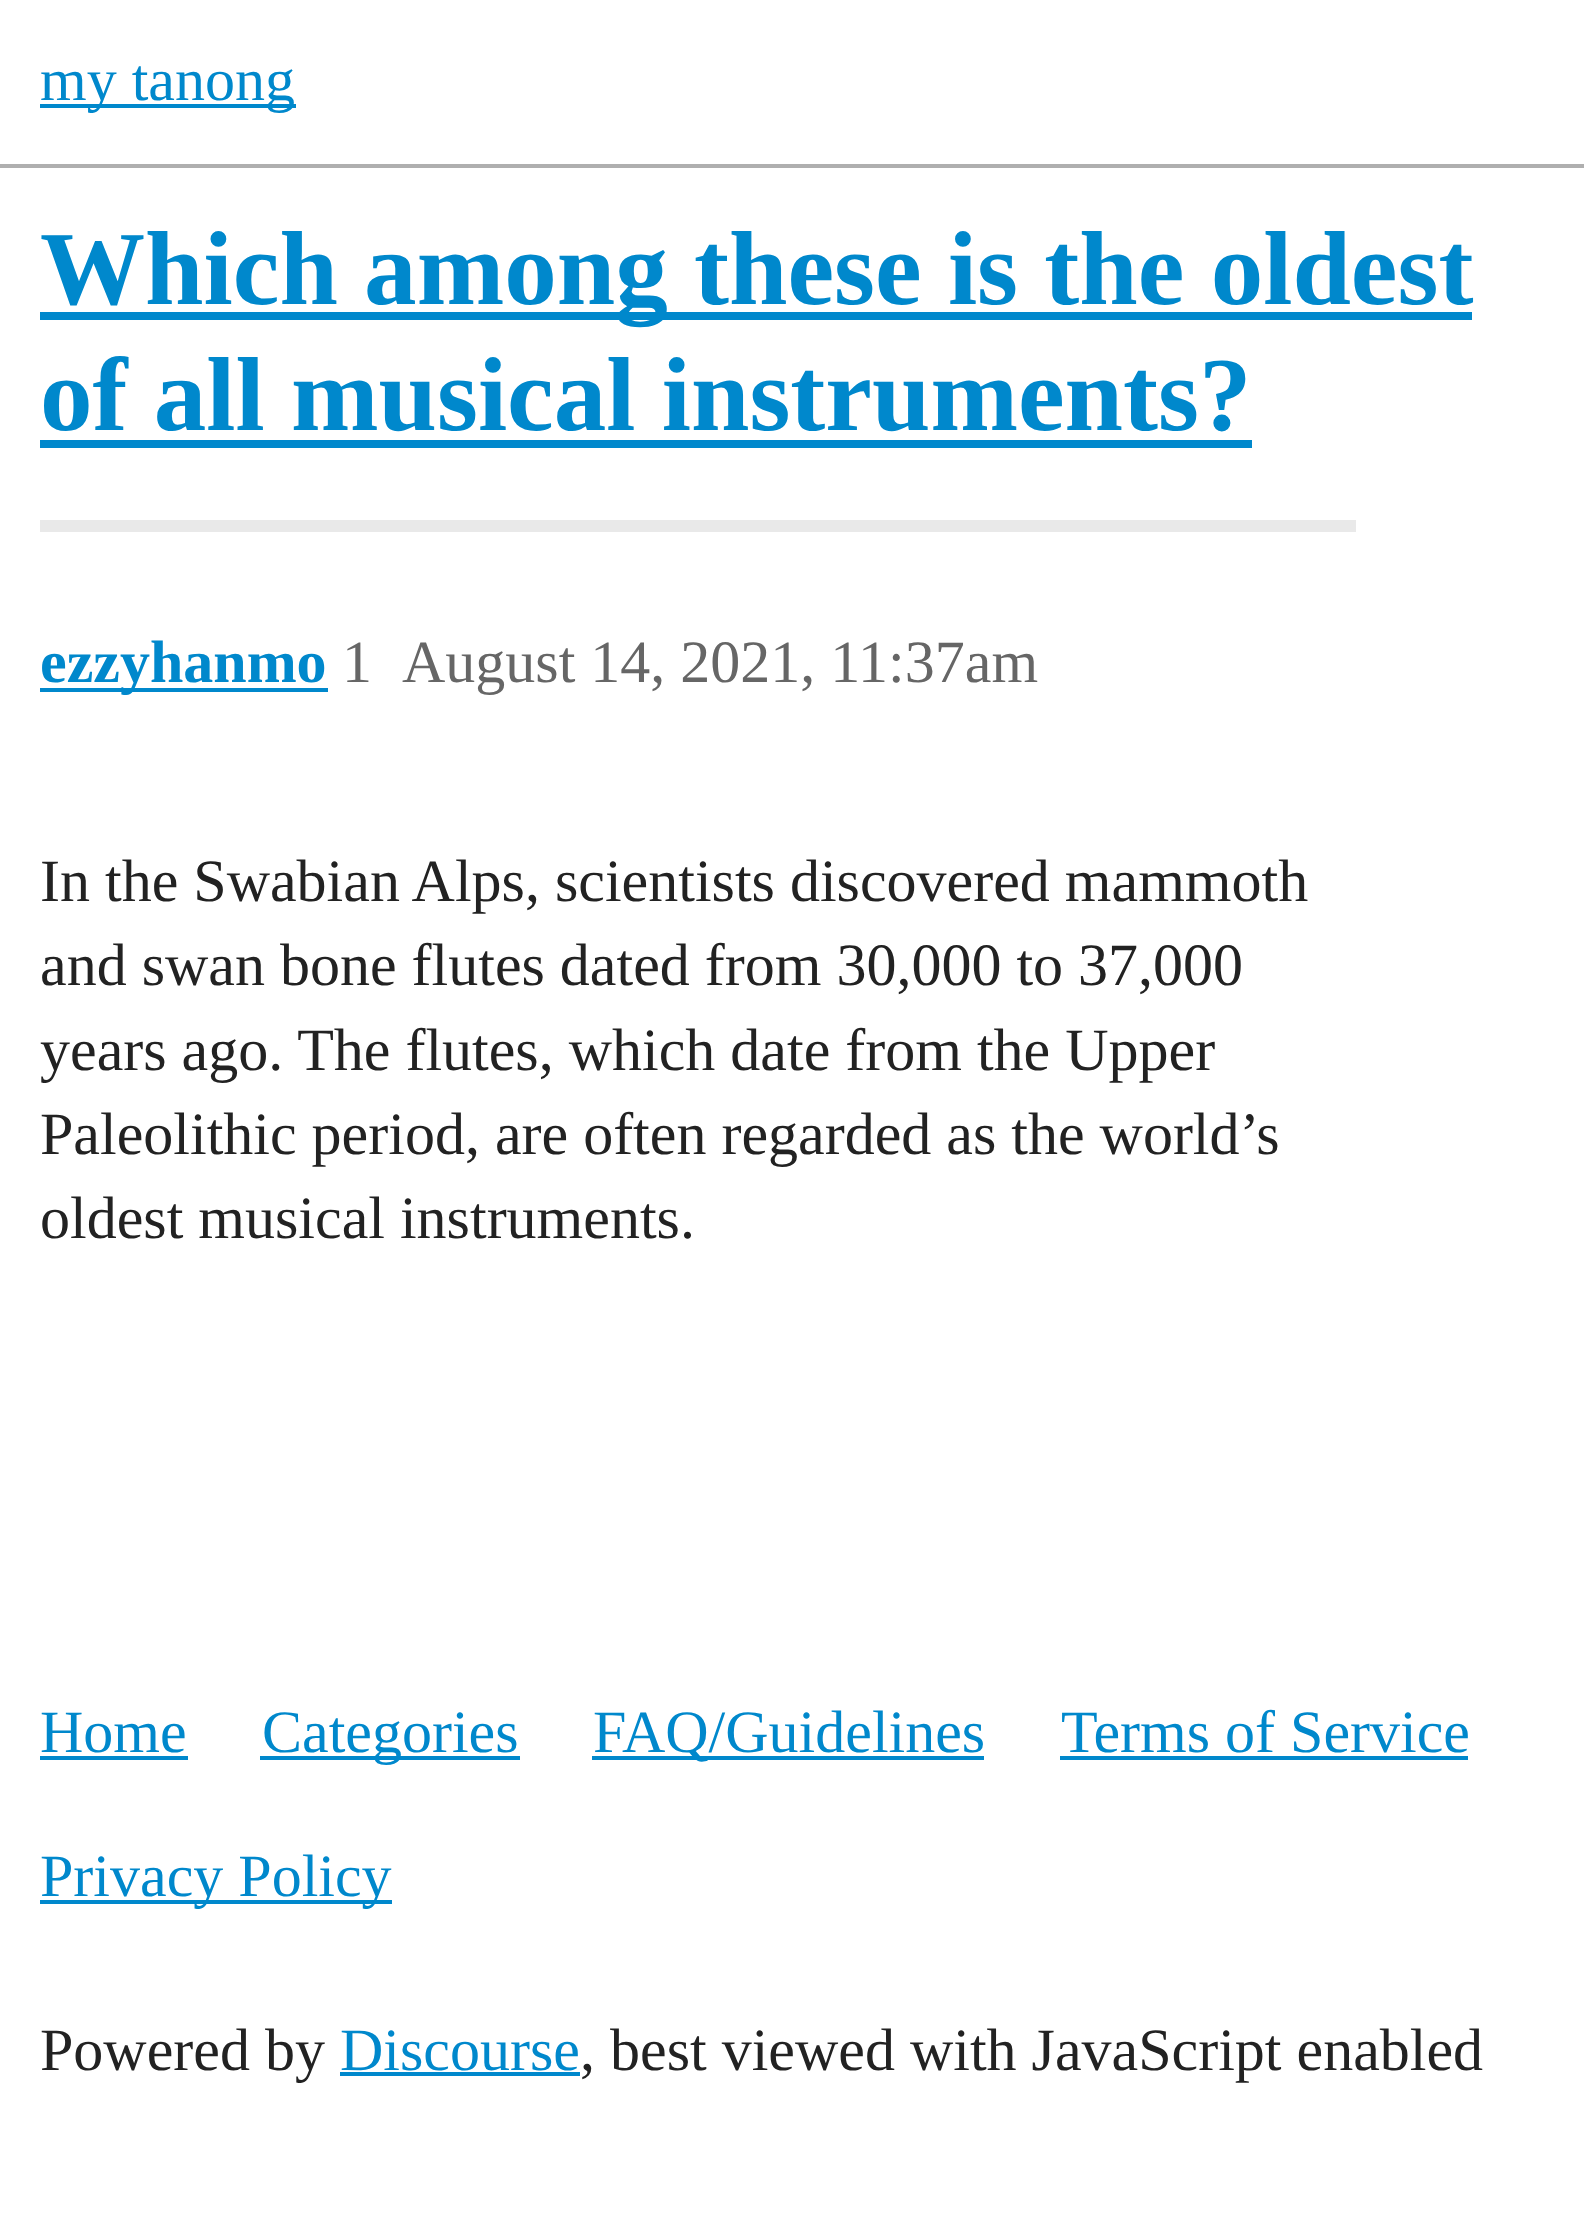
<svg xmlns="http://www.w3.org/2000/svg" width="1584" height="2216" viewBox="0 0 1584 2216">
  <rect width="100%" height="100%" fill="#fff"/>
  <path d="M0 164h1584v4H0z" fill="#afafaf"/>
  <path d="M40 104h256v4H40z" fill="#08c"/>
  <path d="M40 312h1432v8H40z" fill="#08c"/>
  <path d="M40 440h1212v8H40z" fill="#08c"/>
  <path d="M40 520h1316v12H40z" fill="#e9e9e9"/>
  <path d="M40 688h288v4H40z" fill="#08c"/>
  <path d="M40 1756h148v4H40z" fill="#08c"/>
  <path d="M260 1756h260v4H260z" fill="#08c"/>
  <path d="M592 1756h392v4H592z" fill="#08c"/>
  <path d="M1060 1756h408v4H1060z" fill="#08c"/>
  <path d="M40 1900h352v4H40z" fill="#08c"/>
  <path d="M340 2072h240v4H340z" fill="#08c"/>
  <text x="40" y="100" font-family="Liberation Serif" font-size="60" fill="#08c">my tanong</text>
  <g font-family="Liberation Serif" font-size="105.1" font-weight="bold" fill="#08c">
    <text x="40" y="304">Which among these is the oldest</text>
    <text x="40" y="430">of all musical instruments?</text>
  </g>
  <text x="40" y="682" font-family="Liberation Serif" font-size="60" font-weight="bold" fill="#08c">ezzyhanmo</text>
  <g font-family="Liberation Serif" font-size="60" fill="#666">
    <text x="342" y="682">1</text>
    <text x="402" y="682">August 14, 2021, 11:37am</text>
  </g>
  <g font-family="Liberation Serif" font-size="60" fill="#222">
    <text x="40" y="901">In the Swabian Alps, scientists discovered mammoth</text>
    <text x="40" y="985">and swan bone flutes dated from 30,000 to 37,000</text>
    <text x="40" y="1070">years ago. The flutes, which date from the Upper</text>
    <text x="40" y="1154">Paleolithic period, are often regarded as the world’s</text>
    <text x="40" y="1238">oldest musical instruments.</text>
  </g>
  <g font-family="Liberation Serif" font-size="60" fill="#08c">
    <text x="40" y="1752">Home</text>
    <text x="262" y="1752">Categories</text>
    <text x="593" y="1752">FAQ/Guidelines</text>
    <text x="1061" y="1752">Terms of Service</text>
    <text x="40" y="1896">Privacy Policy</text>
  </g>
  <text x="40" y="2070" font-family="Liberation Serif" font-size="60" fill="#222">Powered by</text>
  <text x="340" y="2070" font-family="Liberation Serif" font-size="60" fill="#08c">Discourse</text>
  <text x="580" y="2070" font-family="Liberation Serif" font-size="60" fill="#222">, best viewed with JavaScript enabled</text>
</svg>
